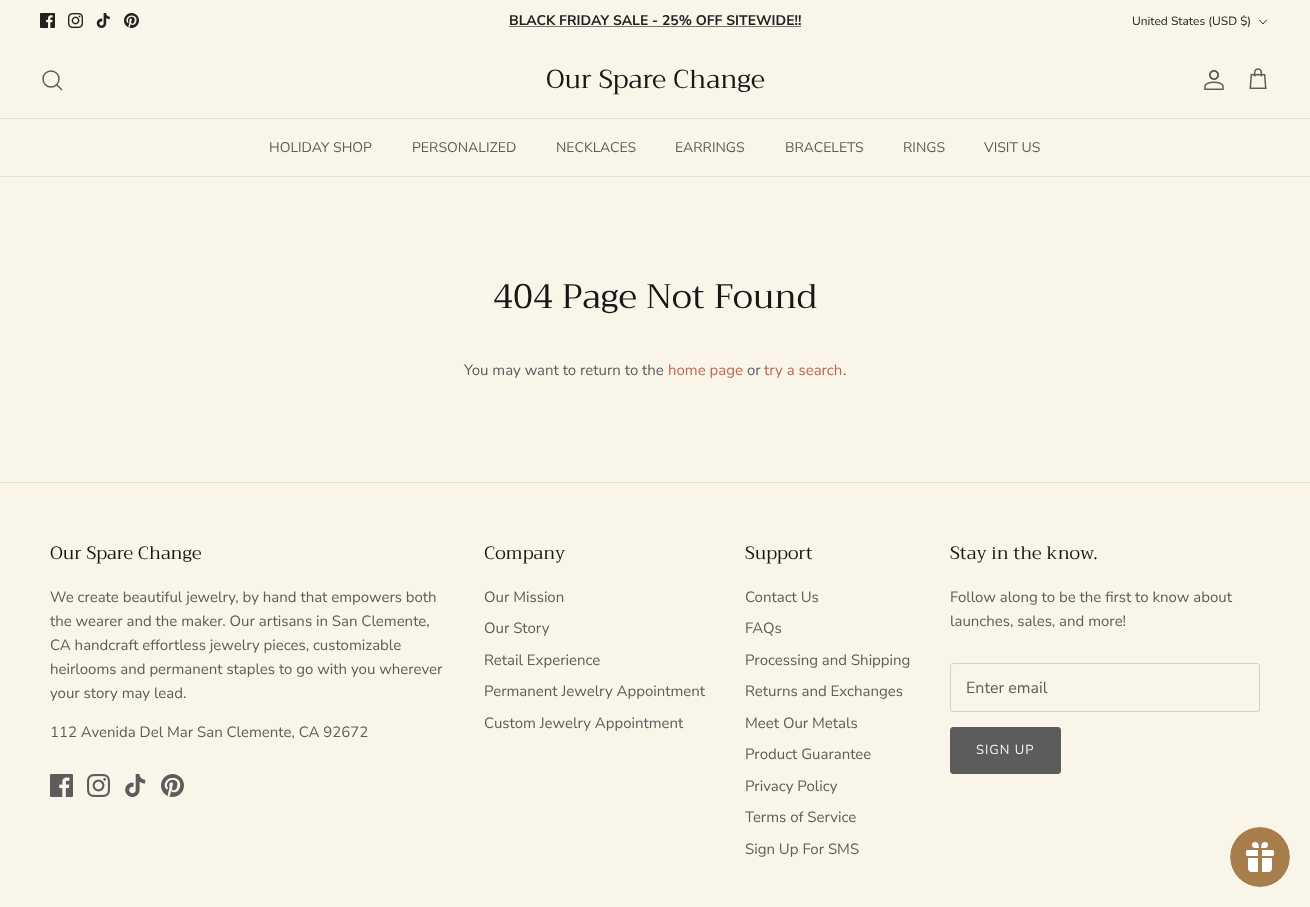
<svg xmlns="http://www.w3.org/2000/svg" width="1310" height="907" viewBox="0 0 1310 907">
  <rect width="100%" height="100%" fill="#f9f6e9"/>
  <image x="40" y="13" width="15" height="15" href="img/1.png"/>
  <image x="68" y="13" width="15" height="15" href="img/2.png"/>
  <image x="96" y="13" width="14" height="15" href="img/3.png"/>
  <image x="124" y="13" width="15" height="15" href="img/4.png"/>
  <path d="M509 26h292v1H509z" fill="#777671"/>
  <path d="M1259.5 20L1263 24L1266.5 20" fill="none" stroke="#212121" stroke-width="0.9" stroke-linecap="round" stroke-linejoin="round"/>
  <path d="M0 118h1310v1H0z" fill="#dfe3e8"/>
  <circle cx="51" cy="79" r="8" fill="none" stroke="#5c5c5c" stroke-width="1.5"/>
  <path d="M57 85L61.5 89.5" fill="none" stroke="#5c5c5c" stroke-width="1.5" stroke-linecap="square"/>
  <image x="1204" y="70" width="20" height="20" href="img/5.png"/>
  <image x="1249" y="68" width="18" height="21" href="img/6.png"/>
  <path d="M0 176h1310v1H0z" fill="#dfe3e8"/>
  <path d="M0 482h1310v1H0z" fill="#efdfc7"/>
  <image x="50" y="774" width="23" height="23" href="img/7.png"/>
  <image x="87" y="774" width="23" height="23" href="img/8.png"/>
  <image x="125" y="774" width="21" height="23" href="img/9.png"/>
  <image x="161" y="774" width="23" height="23" href="img/10.png"/>
  <rect x="950.5" y="663.5" width="309" height="48" rx="2.5" fill="none" stroke="#d2d0c6"/>
  <rect x="950.5" y="727.5" width="110" height="46" rx="2.5" fill="#5c5c5c" stroke="#5c5c5c"/>
  <image x="1230" y="827" width="60" height="60" href="img/11.png"/>
  <text x="509" y="25" font-family="Nunito Sans" font-size="14" font-weight="bold" fill="#212121">BLACK FRIDAY SALE - 25% OFF SITEWIDE!!</text>
  <text x="1132" y="25" font-family="Nunito Sans" font-size="12" fill="#212121">United States (USD $)</text>
  <text x="546" y="88" font-family="Trirong" font-size="26" fill="#171717">Our Spare Change</text>
  <g font-family="Nunito Sans" font-size="14" fill="#5c5c5c">
    <text x="269" y="152">HOLIDAY SHOP</text>
    <text x="412" y="152">PERSONALIZED</text>
    <text x="556" y="152">NECKLACES</text>
    <text x="675" y="152">EARRINGS</text>
    <text x="785" y="152">BRACELETS</text>
    <text x="903" y="152">RINGS</text>
    <text x="984" y="152">VISIT US</text>
  </g>
  <text x="493" y="308" font-family="Trirong" font-size="34" fill="#171717">404 Page Not Found</text>
  <text x="464" y="375" font-family="Nunito Sans" font-size="15" fill="#5c5c5c">You may want to return to the</text>
  <text x="668" y="375" font-family="Nunito Sans" font-size="15" fill="#c16452">home page</text>
  <text x="747" y="375" font-family="Nunito Sans" font-size="15" fill="#5c5c5c">or</text>
  <text x="764" y="375" font-family="Nunito Sans" font-size="15" fill="#c16452">try a search</text>
  <text x="843" y="375" font-family="Nunito Sans" font-size="15" fill="#5c5c5c">.</text>
  <text x="50" y="559" font-family="Trirong" font-size="18" fill="#171717">Our Spare Change</text>
  <g font-family="Nunito Sans" font-size="15" fill="#5c5c5c">
    <text x="50" y="602">We create beautiful jewelry, by hand that empowers both</text>
    <text x="50" y="626">the wearer and the maker. Our artisans in San Clemente,</text>
    <text x="50" y="650">CA handcraft effortless jewelry pieces, customizable</text>
    <text x="50" y="674">heirlooms and permanent staples to go with you wherever</text>
    <text x="50" y="698">your story may lead.</text>
    <text x="50" y="737">112 Avenida Del Mar San Clemente, CA 92672</text>
  </g>
  <text x="484" y="559" font-family="Trirong" font-size="18" fill="#171717">Company</text>
  <g font-family="Nunito Sans" font-size="15" fill="#5c5c5c">
    <text x="484" y="602">Our Mission</text>
    <text x="484" y="633">Our Story</text>
    <text x="484" y="665">Retail Experience</text>
    <text x="484" y="696">Permanent Jewelry Appointment</text>
    <text x="484" y="728">Custom Jewelry Appointment</text>
  </g>
  <text x="745" y="559" font-family="Trirong" font-size="18" fill="#171717">Support</text>
  <g font-family="Nunito Sans" font-size="15" fill="#5c5c5c">
    <text x="745" y="602">Contact Us</text>
    <text x="745" y="633">FAQs</text>
    <text x="745" y="665">Processing and Shipping</text>
    <text x="745" y="696">Returns and Exchanges</text>
    <text x="745" y="728">Meet Our Metals</text>
    <text x="745" y="759">Product Guarantee</text>
    <text x="745" y="791">Privacy Policy</text>
    <text x="745" y="822">Terms of Service</text>
    <text x="745" y="854">Sign Up For SMS</text>
  </g>
  <text x="950" y="559" font-family="Trirong" font-size="18" fill="#171717">Stay in the know.</text>
  <g font-family="Nunito Sans" font-size="15" fill="#5c5c5c">
    <text x="950" y="602">Follow along to be the first to know about</text>
    <text x="950" y="626">launches, sales, and more!</text>
  </g>
  <text x="966" y="693" font-family="Nunito Sans" font-size="16" fill="#5c5c5c">Enter email</text>
  <text x="976" y="754" font-family="Nunito Sans" font-size="13" letter-spacing="1" fill="#f9f6e9">SIGN UP</text>
</svg>
